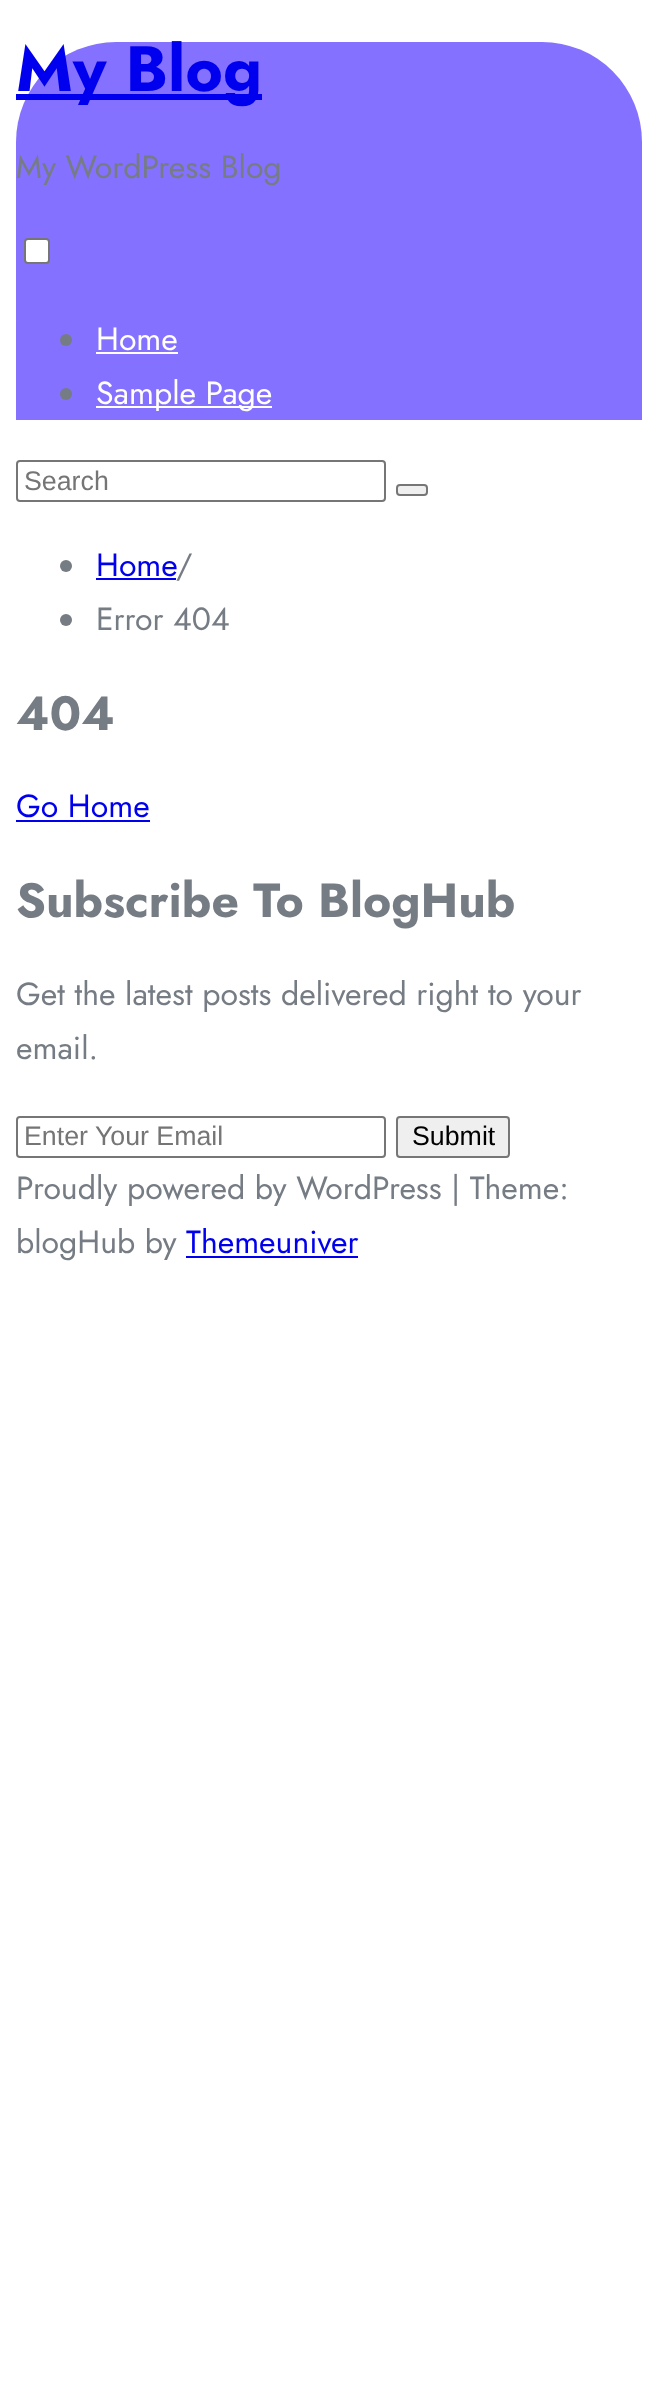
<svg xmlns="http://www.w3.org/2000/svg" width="657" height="2400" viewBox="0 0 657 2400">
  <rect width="100%" height="100%" fill="#fff"/>
  <rect x="16" y="42" width="626" height="378" rx="100" fill="#8571ff"/>
  <path d="M16 94h246v6H16z" fill="#00e"/>
  <rect x="25" y="239" width="24" height="24" rx="3" fill="#fff" stroke="#767676" stroke-width="2"/>
  <path d="M16 321h626v99H16z" fill="#8571ff"/>
  <circle cx="66" cy="340" r="6" fill="#767c84"/>
  <path d="M96 352h82v2H96z" fill="#fff"/>
  <circle cx="66" cy="394" r="6" fill="#767c84"/>
  <path d="M96 406h176v2H96z" fill="#fff"/>
  <rect x="17" y="461" width="368" height="40" rx="3" fill="none" stroke="#767676" stroke-width="2"/>
  <rect x="397" y="485" width="30" height="10" rx="3" fill="#efefef" stroke="#767676" stroke-width="2"/>
  <circle cx="66" cy="566" r="6" fill="#767c84"/>
  <path d="M96 578h80v2H96z" fill="#00e"/>
  <circle cx="66" cy="620" r="6" fill="#767c84"/>
  <path d="M16 820h134v2H16z" fill="#00e"/>
  <rect x="17" y="1117" width="368" height="40" rx="3" fill="none" stroke="#767676" stroke-width="2"/>
  <rect x="397" y="1117" width="112" height="40" rx="3" fill="#efefef" stroke="#767676" stroke-width="2"/>
  <path d="M186 1256h172v2H186z" fill="#00e"/>
  <text x="16" y="91" font-family="Jost" font-size="64" font-weight="bold" fill="#00e">My Blog</text>
  <text x="16" y="178" font-family="Jost" font-size="32" fill="#767c84">My WordPress Blog</text>
  <g font-family="Jost" font-size="32" fill="#fff">
    <text x="96" y="350">Home</text>
    <text x="96" y="404">Sample Page</text>
  </g>
  <text x="24" y="490" font-family="Liberation Sans" font-size="26.75" fill="#757575">Search</text>
  <text x="96" y="576" font-family="Jost" font-size="32" fill="#00e">Home</text>
  <g font-family="Jost" font-size="32" fill="#767c84">
    <text x="176" y="576">/</text>
    <text x="96" y="630">Error 404</text>
  </g>
  <text x="16" y="730" font-family="Jost" font-size="48" font-weight="bold" fill="#767c84">404</text>
  <text x="16" y="817" font-family="Jost" font-size="32" fill="#00e">Go Home</text>
  <text x="16" y="917" font-family="Jost" font-size="48" font-weight="bold" fill="#767c84">Subscribe To BlogHub</text>
  <g font-family="Jost" font-size="32" fill="#767c84">
    <text x="16" y="1005">Get the latest posts delivered right to your</text>
    <text x="16" y="1059">email.</text>
  </g>
  <text x="24" y="1145" font-family="Liberation Sans" font-size="26.75" fill="#757575">Enter Your Email</text>
  <text x="412" y="1145" font-family="Liberation Sans" font-size="26.75" fill="#000">Submit</text>
  <g font-family="Jost" font-size="32" fill="#767c84">
    <text x="16" y="1199">Proudly powered by WordPress | Theme:</text>
    <text x="16" y="1253">blogHub by</text>
  </g>
  <text x="186" y="1253" font-family="Jost" font-size="32" fill="#00e">Themeuniver</text>
</svg>
